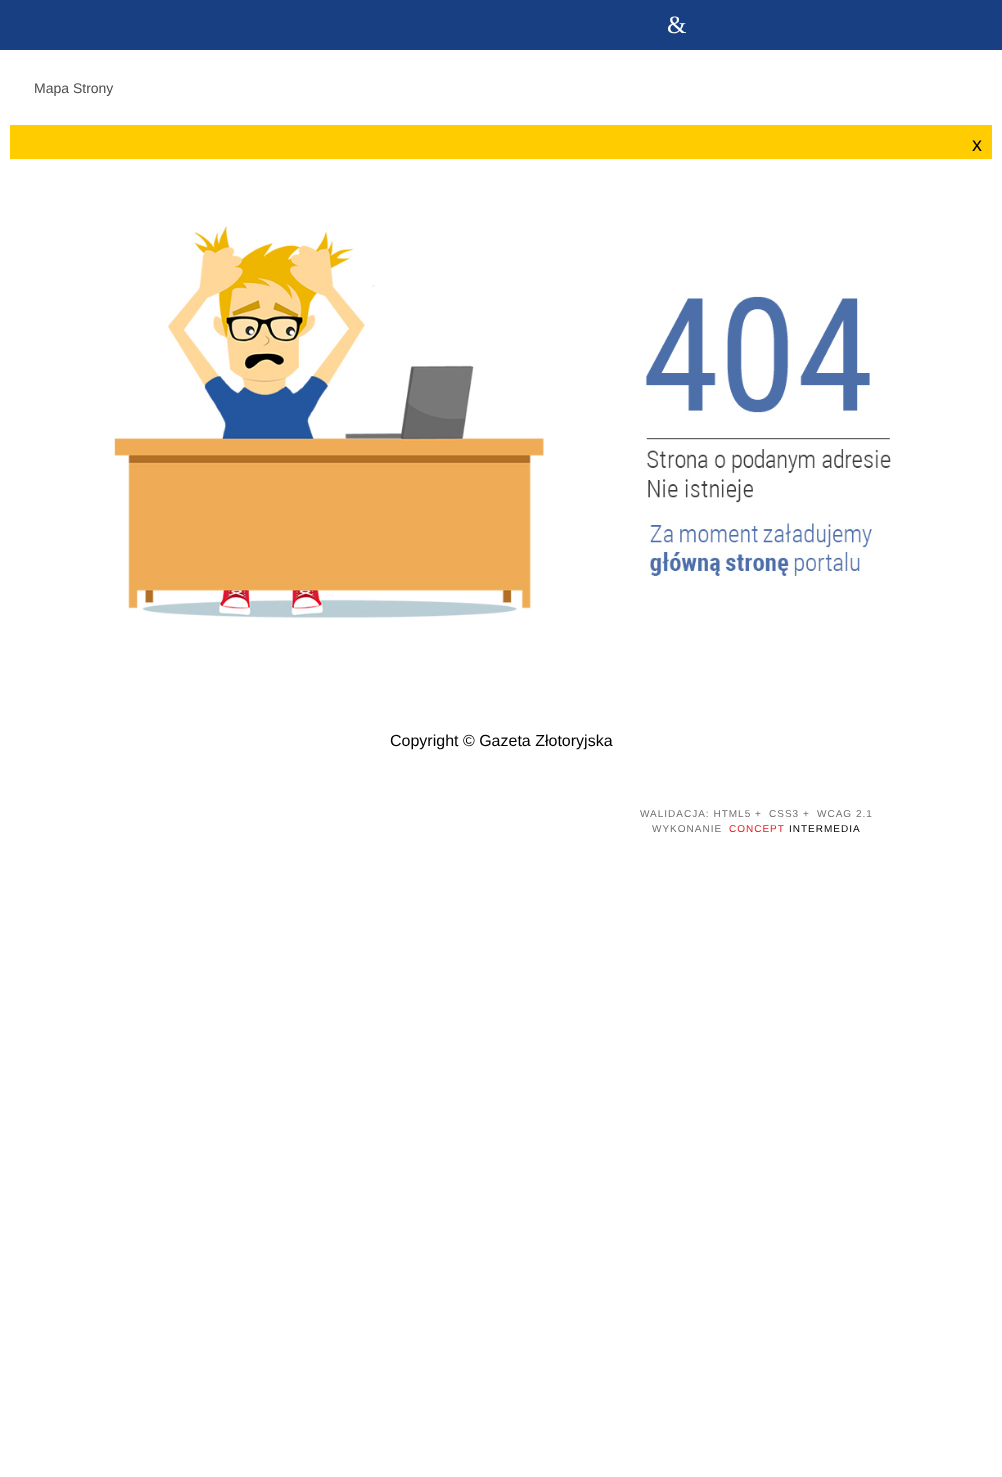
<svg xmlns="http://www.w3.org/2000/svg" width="1002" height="1477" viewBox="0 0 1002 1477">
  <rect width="100%" height="100%" fill="#fff"/>
  <path d="M0 0h1002v50H0z" fill="#193f83"/>
  <path d="M10 125h982v34H10z" fill="#fc0"/>
  <image x="114" y="226" width="777" height="392" href="img/1.png"/>
  <text x="667" y="33" font-family="Liberation Serif" font-size="25" fill="#fff">&amp;</text>
  <text x="34" y="93" font-family="Liberation Sans" font-size="14" fill="#4c4c4c">Mapa Strony</text>
  <text x="972" y="151" font-family="Liberation Sans" font-size="20" fill="#000">x</text>
  <text x="390" y="746" font-family="Liberation Sans" font-size="16" fill="#000">Copyright © Gazeta Złotoryjska</text>
  <g font-family="Liberation Sans" font-size="10" letter-spacing="1" fill="#6f6f6f">
    <text x="640" y="817">WALIDACJA: HTML5 +</text>
    <text x="769" y="817">CSS3 +</text>
    <text x="817" y="817">WCAG 2.1</text>
    <text x="652" y="832">WYKONANIE</text>
  </g>
  <text x="729" y="832" font-family="Liberation Sans" font-size="10" letter-spacing="1" fill="#ea1920">CONCEPT</text>
  <text x="789" y="832" font-family="Liberation Sans" font-size="10" letter-spacing="1" fill="#000">INTERMEDIA</text>
</svg>
